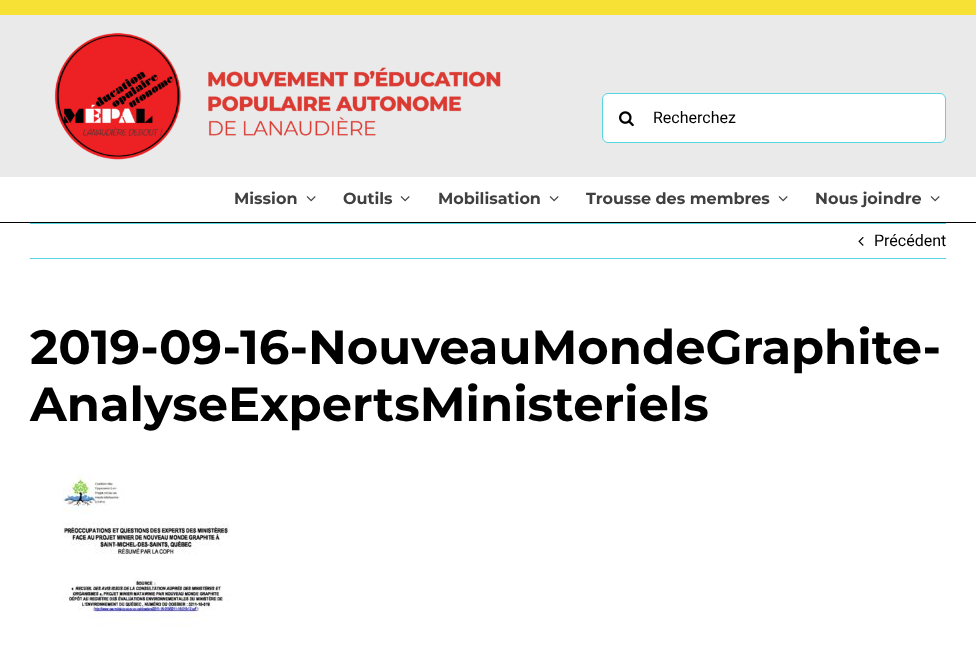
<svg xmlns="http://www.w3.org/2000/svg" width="976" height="668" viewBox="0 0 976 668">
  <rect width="100%" height="100%" fill="#fff"/>
  <path d="M0 0h976v15H0z" fill="#f7e135"/>
  <path d="M0 15h976v162H0z" fill="#eaeaea"/>
  <image x="54" y="32" width="447" height="128" href="img/1.png"/>
  <rect x="602.5" y="93.5" width="343" height="49" rx="5.5" fill="#fff" stroke="#57d6e2"/>
  <image x="619" y="111" width="15" height="16" href="img/2.png"/>
  <path d="M0 222h976v1H0z" fill="#000"/>
  <image x="306" y="196" width="10" height="6" href="img/3.png"/>
  <image x="400" y="196" width="10" height="6" href="img/3.png"/>
  <image x="549" y="196" width="10" height="6" href="img/3.png"/>
  <image x="778" y="196" width="10" height="6" href="img/3.png"/>
  <image x="930" y="196" width="10" height="6" href="img/3.png"/>
  <path d="M30 223h916v1H30z" fill="#57d6e2"/>
  <path d="M30 258h916v1H30z" fill="#57d6e2"/>
  <image x="858" y="237" width="6" height="9" href="img/4.png"/>
  <image x="62" y="474" width="168" height="152" href="img/5.png"/>
  <text x="653" y="123" font-family="Roboto" font-size="16" fill="#000">Recherchez</text>
  <g font-family="Montserrat" font-size="16" font-weight="100" fill="#404040">
    <text x="234" y="204">Mission</text>
    <text x="343" y="204">Outils</text>
    <text x="438" y="204">Mobilisation</text>
    <text x="586" y="204">Trousse des membres</text>
    <text x="815" y="204">Nous joindre</text>
  </g>
  <text x="874" y="246" font-family="Roboto" font-size="16" fill="#000">Précédent</text>
  <g font-family="Montserrat" font-size="48" font-weight="100" fill="#000">
    <text x="30" y="364">2019-09-16-NouveauMondeGraphite-</text>
    <text x="30" y="421">AnalyseExpertsMinisteriels</text>
  </g>
</svg>
